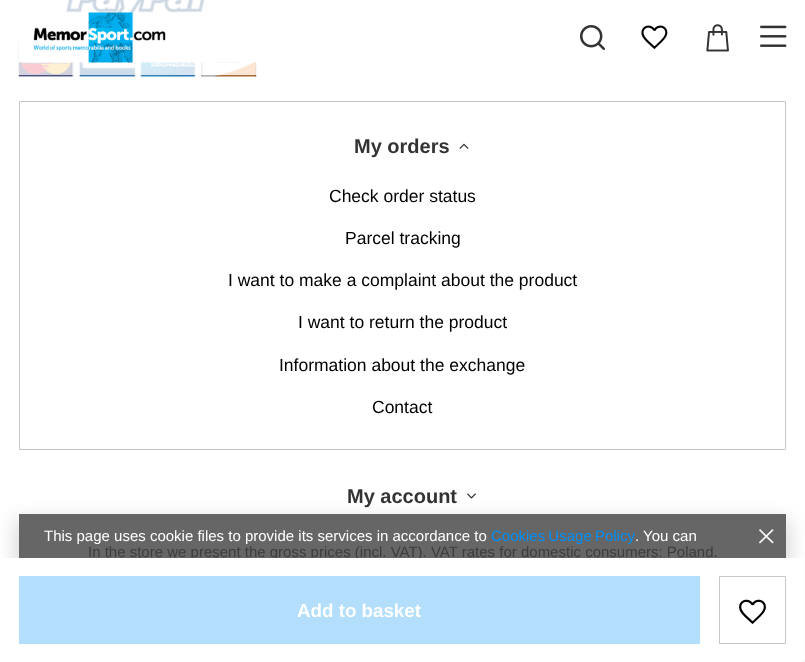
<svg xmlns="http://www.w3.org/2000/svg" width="805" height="662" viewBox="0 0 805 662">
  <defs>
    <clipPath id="clip1"><path d="M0 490H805V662H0ZM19 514H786V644H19Z" clip-rule="evenodd"/></clipPath>
  </defs>
  <rect width="100%" height="100%" fill="#fff"/>
  <image x="18" y="0" width="239" height="77" href="img/1.png"/>
  <path d="M19.5 101.5h766v348H19.5z" fill="none" stroke="#c4c7c8"/>
  <image x="459" y="143" width="10" height="6" href="img/2.png"/>
  <image x="467" y="493" width="9" height="6" href="img/3.png"/>
  <g clip-path="url(#clip1)">
    <path d="M15 520h775v138H15z" fill="#00000026" filter="blur(9.5px)"/>
  </g>
  <image x="19" y="12" width="238" height="51" href="img/5.png"/>
  <image x="580" y="25" width="25" height="25" href="img/6.png"/>
  <image x="641" y="25" width="27" height="24" href="img/7.png"/>
  <image x="706" y="24" width="23" height="28" href="img/8.png"/>
  <image x="760" y="25" width="27" height="22" href="img/9.png"/>
  <text x="354" y="153" font-family="Liberation Sans" font-size="20" font-weight="bold" fill="#333">My orders</text>
  <g font-family="Liberation Sans" font-size="17.5" fill="#000">
    <text x="329" y="202">Check order status</text>
    <text x="345" y="244">Parcel tracking</text>
    <text x="228" y="286">I want to make a complaint about the product</text>
    <text x="298" y="328">I want to return the product</text>
    <text x="279" y="371">Information about the exchange</text>
    <text x="372" y="413">Contact</text>
  </g>
  <text x="347" y="503" font-family="Liberation Sans" font-size="20" font-weight="bold" fill="#333">My account</text>
  <text x="88" y="557" font-family="Liberation Sans" font-size="15" fill="#999">In the store we present the gross prices (incl. VAT). VAT rates for domestic consumers: Poland.</text>
  <path d="M19 514h767v44H19z" fill="#00000099"/>
  <text x="44" y="541" font-family="Liberation Sans" font-size="15" fill="#fff">This page uses cookie files to provide its services in accordance to</text>
  <text x="491" y="541" word-spacing="-1" font-family="Liberation Sans" font-size="15" fill="#0090f6">Cookies Usage Policy</text>
  <text x="635" y="541" font-family="Liberation Sans" font-size="15" fill="#fff">. You can</text>
  <image x="758" y="529" width="16" height="15" href="img/4.png"/>
  <path d="M1 558h803v104H1z" fill="#fff"/>
  <path d="M19 576h681v68H19z" fill="#b3defc"/>
  <text x="297" y="617" font-family="Liberation Sans" font-size="18.75" font-weight="bold" fill="#fff">Add to basket</text>
  <path d="M719.5 576.5h66v67H719.5z" fill="none" stroke="#c4c7c8"/>
  <image x="739" y="599" width="27" height="25" href="img/10.png"/>
  <path d="M803 660h2v2H803z" fill="#f5f5f5"/>
</svg>
